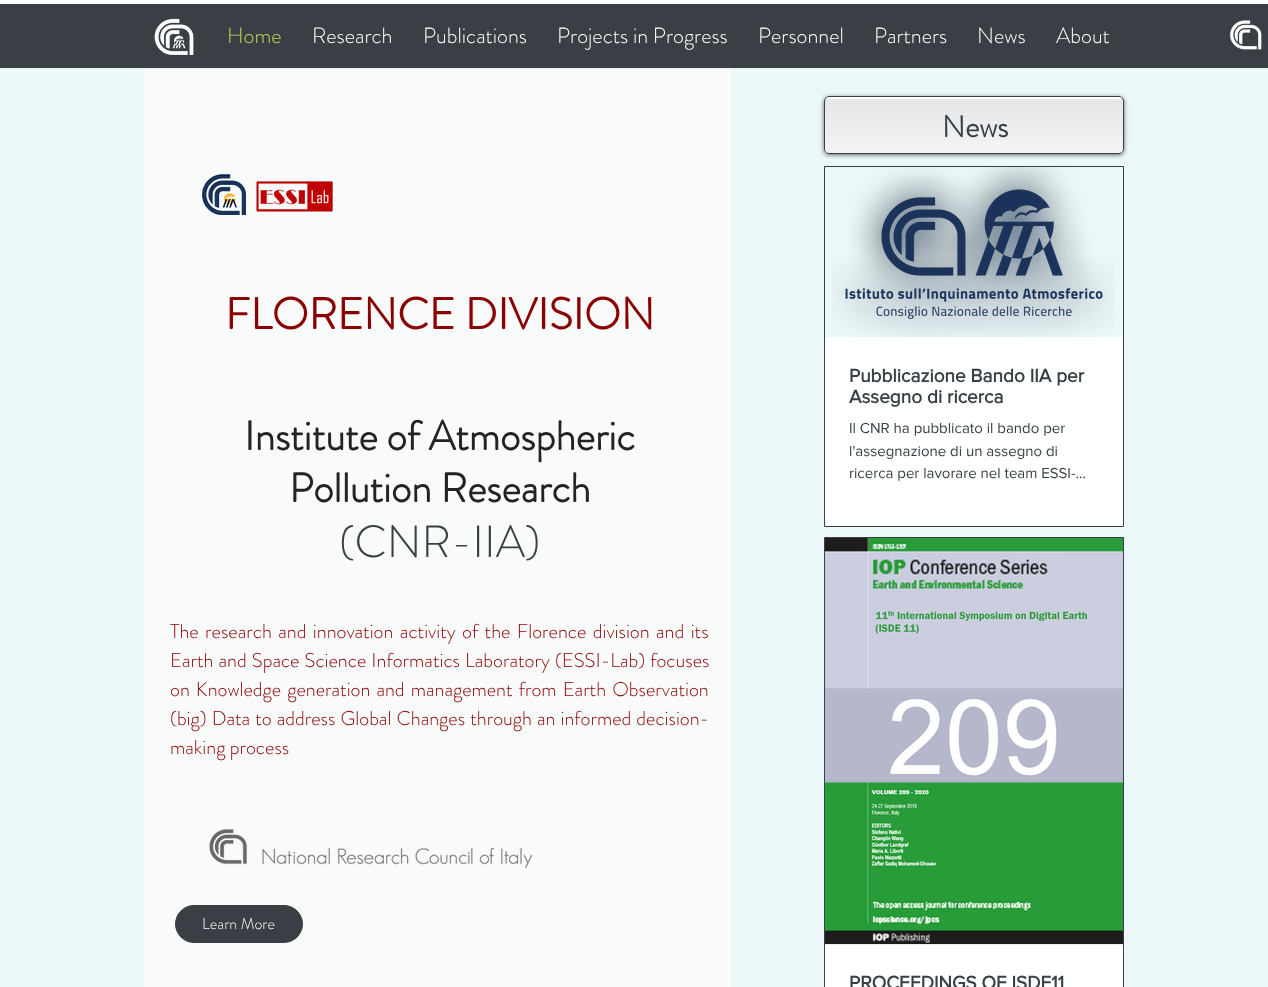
<svg xmlns="http://www.w3.org/2000/svg" width="1268" height="987" viewBox="0 0 1268 987">
  <defs>
    <clipPath id="clip1"><path d="M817 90H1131V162H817ZM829 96H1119C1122 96 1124 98 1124 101V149C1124 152 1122 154 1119 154H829C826 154 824 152 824 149V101C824 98 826 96 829 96Z" clip-rule="evenodd"/></clipPath>
  </defs>
  <rect width="100%" height="100%" fill="#e5f0f1"/>
  <path d="M0 0h1268v4H0z" fill="#fff"/>
  <path d="M0 4h1268v64H0z" fill="#393f44"/>
  <image x="154" y="18" width="40" height="37" href="img/1.png"/>
  <image x="1230" y="20" width="32" height="30" href="img/2.png"/>
  <path d="M0 69h1268v918H0z" fill="#ebf7f9"/>
  <path d="M144 69h587v918H144z" fill="#f9fafa"/>
  <image x="202" y="174" width="44" height="41" href="img/3.png"/>
  <image x="256" y="181" width="77" height="31" href="img/4.png"/>
  <image x="209" y="829" width="324" height="39" href="img/5.png"/>
  <rect x="175.5" y="905.5" width="127" height="37" rx="18.5" fill="#393f44" stroke="#393f44"/>
  <g clip-path="url(#clip1)">
    <rect x="824" y="97" width="300" height="58" rx="5" fill="#00000099" filter="blur(2px)"/>
  </g>
  <rect x="824" y="96" width="300" height="58" rx="5" fill="#ffffffe3"/>
  <image x="824" y="99" width="300" height="55" href="img/6.png"/>
  <rect x="824.5" y="96.5" width="299" height="57" rx="4.5" fill="none" stroke="#393f44"/>
  <path d="M824.5 166.5h299v360H824.5z" fill="none" stroke="#393f44"/>
  <image x="832" y="167" width="283" height="171" href="img/7.png"/>
  <image x="845" y="189" width="258" height="130" href="img/8.png"/>
  <path d="M825 337h298v189H825z" fill="#ffffffeb"/>
  <path d="M824.5 537.5h299v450H824.5z" fill="none" stroke="#393f44"/>
  <image x="825" y="538" width="298" height="407" href="img/9.png"/>
  <path d="M825 944h298v43H825z" fill="#ffffffeb"/>
  <text x="227" y="43" font-family="'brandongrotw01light'" font-size="22" font-weight="300" fill="#bada55">Home</text>
  <g font-family="'brandongrotw01light'" font-size="22" font-weight="300" fill="#fff">
    <text x="312" y="43">Research</text>
    <text x="423" y="43">Publications</text>
    <text x="557" y="43">Projects in Progress</text>
    <text x="758" y="43">Personnel</text>
    <text x="874" y="43">Partners</text>
    <text x="977" y="43">News</text>
    <text x="1056" y="43">About</text>
  </g>
  <text x="225" y="329" font-family="'brandongrotw01light'" font-size="44" font-weight="bold" fill="#8b0000">FLORENCE DIVISION</text>
  <g font-family="'brandongrotw01light'" font-size="41" font-weight="bold" fill="#232323">
    <text x="244" y="450">Institute of Atmospheric</text>
    <text x="289" y="502">Pollution Research</text>
  </g>
  <text x="339" y="557" font-family="'brandongrotw01light'" font-size="45" font-weight="300" fill="#393f44">(CNR-IIA)</text>
  <g font-family="'brandongrotw01light'" font-size="20" font-weight="300" fill="#8b0000">
    <text x="170" y="638" word-spacing="2.1">The research and innovation activity of the Florence division and its</text>
    <text x="170" y="667" word-spacing="0.75">Earth and Space Science Informatics Laboratory (ESSI-Lab) focuses</text>
    <text x="170" y="696" word-spacing="1.75">on Knowledge generation and management from Earth Observation</text>
    <text x="170" y="725" word-spacing="0.75">(big) Data to address Global Changes through an informed decision-</text>
    <text x="170" y="754">making process</text>
  </g>
  <text x="202" y="929" font-family="'brandongrotw01light'" font-size="16" font-weight="300" fill="#fff">Learn More</text>
  <text x="942" y="137" font-family="'brandongrotw01light'" font-size="30" font-weight="bold" fill="#393f44">News</text>
  <g font-family="'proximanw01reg'" font-size="19" font-weight="bold" fill="#393f44">
    <text x="849" y="382">Pubblicazione Bando IIA per</text>
    <text x="849" y="403">Assegno di ricerca</text>
  </g>
  <g font-family="'proximanw01reg'" font-size="15" fill="#393f44">
    <text x="849" y="433">Il CNR ha pubblicato il bando per</text>
    <text x="849" y="456">l'assegnazione di un assegno di</text>
    <text x="849" y="478">ricerca per lavorare nel team ESSI-…</text>
  </g>
  <text x="849" y="989" font-family="'proximanw01reg'" font-size="19" font-weight="bold" fill="#393f44">PROCEEDINGS OF ISDE11</text>
</svg>
